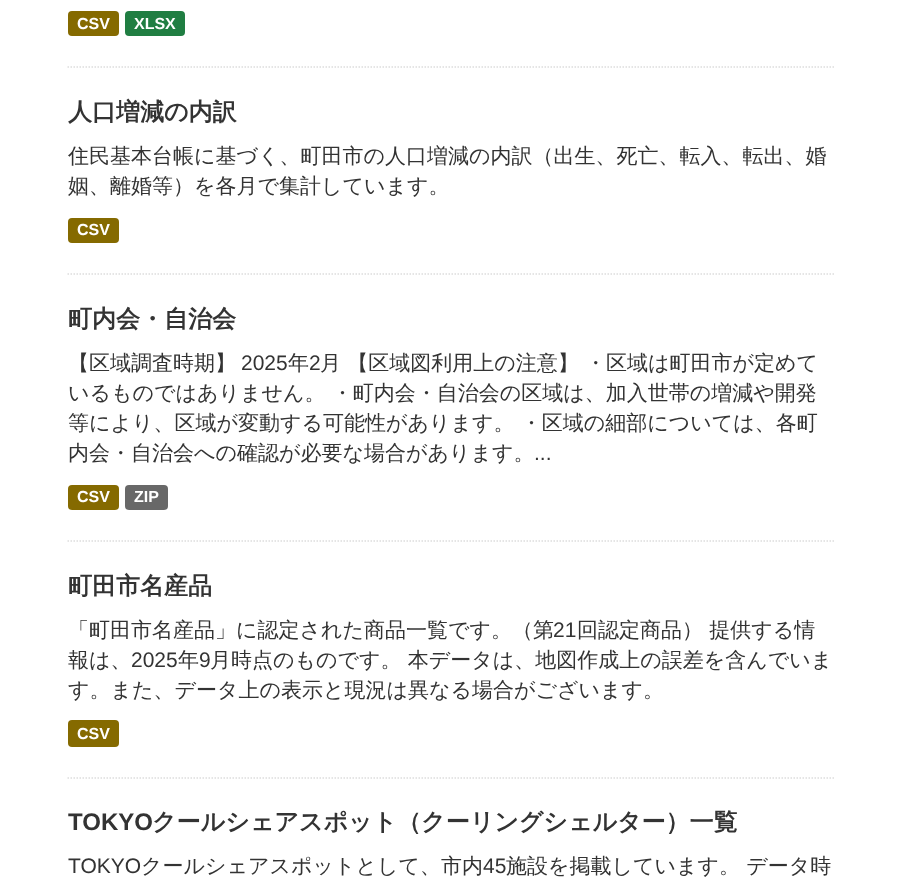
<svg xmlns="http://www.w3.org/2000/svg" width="903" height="891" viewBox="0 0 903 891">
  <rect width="100%" height="100%" fill="#fff"/>
  <path d="M67.5 67H835.5" fill="none" stroke="#ddd" stroke-width="1.5" stroke-dasharray="1.5 1.5"/>
  <rect x="68" y="11" width="51" height="25" rx="4" fill="#856a00"/>
  <rect x="125" y="11" width="60" height="25" rx="4" fill="#207e42"/>
  <path d="M67.5 274H835.5" fill="none" stroke="#ddd" stroke-width="1.5" stroke-dasharray="1.5 1.5"/>
  <rect x="68" y="218" width="51" height="25" rx="4" fill="#856a00"/>
  <path d="M67.5 541H835.5" fill="none" stroke="#ddd" stroke-width="1.5" stroke-dasharray="1.5 1.5"/>
  <rect x="68" y="485" width="51" height="25" rx="4" fill="#856a00"/>
  <rect x="125" y="485" width="43" height="25" rx="4" fill="#686868"/>
  <path d="M67.5 778H835.5" fill="none" stroke="#ddd" stroke-width="1.5" stroke-dasharray="1.5 1.5"/>
  <rect x="68" y="720" width="51" height="27" rx="4" fill="#856a00"/>
  <g font-family="Liberation Sans" font-size="16" font-weight="bold" fill="#fff">
    <text x="77" y="29">CSV</text>
    <text x="134" y="29">XLSX</text>
  </g>
  <text x="68" y="120" font-family="WenQuanYi Zen Hei" font-size="24" font-weight="bold" fill="#333">人口増減の内訳</text>
  <g font-family="WenQuanYi Zen Hei" font-size="21" font-weight="500" fill="#333">
    <text x="68" y="163">住民基本台帳に基づく、町田市の人口増減の内訳（出生、死亡、転入、転出、婚</text>
    <text x="68" y="193">姻、離婚等）を各月で集計しています。</text>
  </g>
  <text x="77" y="235" font-family="Liberation Sans" font-size="16" font-weight="bold" fill="#fff">CSV</text>
  <text x="68" y="327" font-family="WenQuanYi Zen Hei" font-size="24" font-weight="bold" fill="#333">町内会・自治会</text>
  <text x="68" y="370" font-family="WenQuanYi Zen Hei" font-size="21" font-weight="500" fill="#333">【区域調査時期】</text>
  <text x="241" y="370" font-family="Liberation Sans" font-size="21" fill="#333">2025</text>
  <text x="288" y="370" font-family="WenQuanYi Zen Hei" font-size="21" font-weight="500" fill="#333">年</text>
  <text x="309" y="370" font-family="Liberation Sans" font-size="21" fill="#333">2</text>
  <g font-family="WenQuanYi Zen Hei" font-size="21" font-weight="500" fill="#333">
    <text x="320" y="370">月 【区域図利用上の注意】 ・区域は町田市が定めて</text>
    <text x="68" y="400">いるものではありません。 ・町内会・自治会の区域は、加入世帯の増減や開発</text>
    <text x="68" y="430">等により、区域が変動する可能性があります。 ・区域の細部については、各町</text>
    <text x="68" y="460">内会・自治会への確認が必要な場合があります。</text>
  </g>
  <text x="534" y="460" font-family="Liberation Sans" font-size="21" fill="#333">...</text>
  <g font-family="Liberation Sans" font-size="16" font-weight="bold" fill="#fff">
    <text x="77" y="502">CSV</text>
    <text x="134" y="502">ZIP</text>
  </g>
  <text x="68" y="594" font-family="WenQuanYi Zen Hei" font-size="24" font-weight="bold" fill="#333">町田市名産品</text>
  <text x="68" y="637" font-family="WenQuanYi Zen Hei" font-size="21" font-weight="500" fill="#333">「町田市名産品」に認定された商品一覧です。（第</text>
  <text x="553" y="637" font-family="Liberation Sans" font-size="21" fill="#333">21</text>
  <g font-family="WenQuanYi Zen Hei" font-size="21" font-weight="500" fill="#333">
    <text x="577" y="637">回認定商品） 提供する情</text>
    <text x="68" y="667">報は、</text>
  </g>
  <text x="131" y="667" font-family="Liberation Sans" font-size="21" fill="#333">2025</text>
  <text x="178" y="667" font-family="WenQuanYi Zen Hei" font-size="21" font-weight="500" fill="#333">年</text>
  <text x="199" y="667" font-family="Liberation Sans" font-size="21" fill="#333">9</text>
  <g font-family="WenQuanYi Zen Hei" font-size="21" font-weight="500" fill="#333">
    <text x="210" y="667">月時点のものです。 本データは、地図作成上の誤差を含んでいま</text>
    <text x="68" y="697">す。また、データ上の表示と現況は異なる場合がございます。</text>
  </g>
  <text x="77" y="739" font-family="Liberation Sans" font-size="16" font-weight="bold" fill="#fff">CSV</text>
  <text x="68" y="830" font-family="Liberation Sans" font-size="24" font-weight="bold" fill="#333">TOKYO</text>
  <text x="152" y="830" font-family="WenQuanYi Zen Hei" font-size="24" font-weight="bold" fill="#333">クールシェアスポット（クーリングシェルター）一覧</text>
  <text x="68" y="873" font-family="Liberation Sans" font-size="21" fill="#333">TOKYO</text>
  <text x="141" y="873" font-family="WenQuanYi Zen Hei" font-size="21" font-weight="500" fill="#333">クールシェアスポットとして、市内</text>
  <text x="483" y="873" font-family="Liberation Sans" font-size="21" fill="#333">45</text>
  <text x="506" y="873" font-family="WenQuanYi Zen Hei" font-size="21" font-weight="500" fill="#333">施設を掲載しています。 データ時</text>
</svg>
